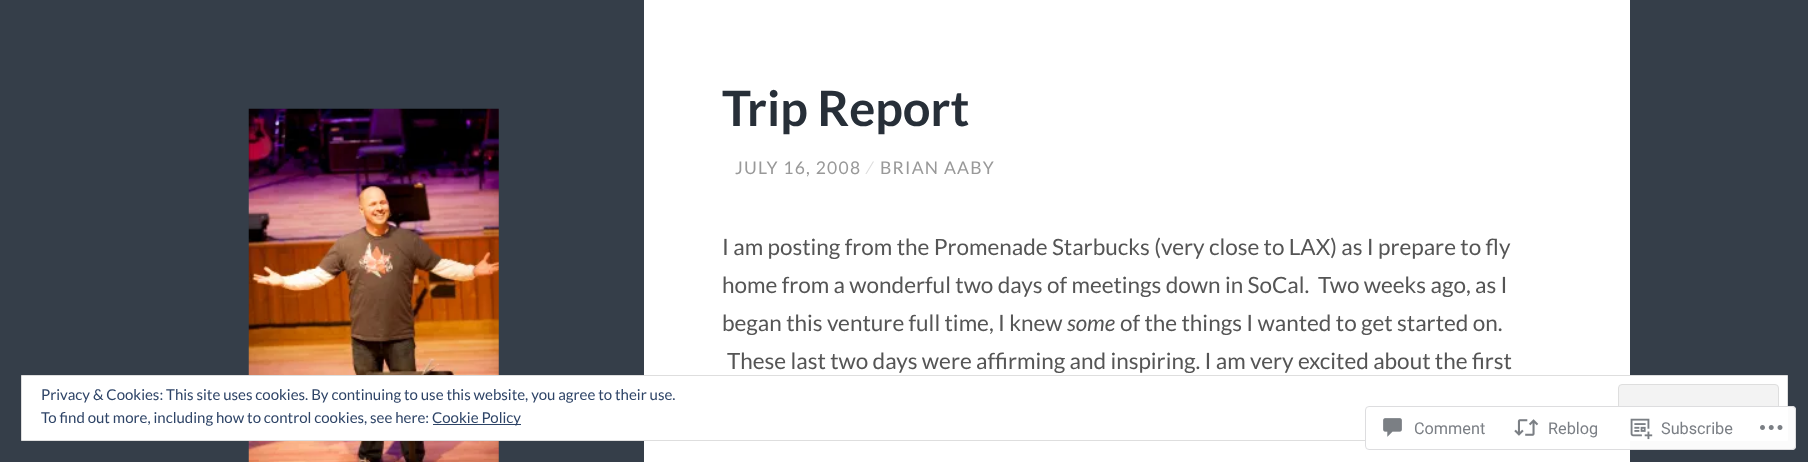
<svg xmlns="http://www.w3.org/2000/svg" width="1808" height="462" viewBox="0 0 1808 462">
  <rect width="100%" height="100%" fill="#353e49"/>
  <path d="M644 0h986v462H644z" fill="#fff"/>
  <image x="248" y="108" width="251" height="354" href="img/1.png"/>
  <path d="M21.5 375.5h1766v65H21.5z" fill="#fff" stroke="#dedede"/>
  <rect x="1618.5" y="384.5" width="160" height="48" rx="3.5" fill="#f3f3f3" stroke="#dedede"/>
  <path d="M433 424h88v1H433z" fill="#2e4467"/>
  <rect x="1365" y="406" width="431" height="44" rx="4" fill="#fffffffa"/>
  <rect x="1365.5" y="406.5" width="430" height="43" rx="3.5" fill="none" stroke="#dcdcdefa"/>
  <image x="1383" y="418" width="19" height="19" href="img/2.png"/>
  <image x="1514" y="419" width="25" height="17" href="img/3.png"/>
  <image x="1630" y="418" width="23" height="22" href="img/4.png"/>
  <image x="1760" y="425" width="23" height="5" href="img/5.png"/>
  <text x="722" y="126" font-family="Lato" font-size="48.75" font-weight="bold" fill="#272f38">Trip Report</text>
  <text x="735" y="174" font-family="Lato" font-size="17.5" letter-spacing="1.25" fill="#999">JULY 16, 2008</text>
  <text x="867" y="174" font-family="Lato" font-size="17.5" letter-spacing="1.25" fill="#ddd">⁄</text>
  <text x="880" y="174" font-family="Lato" font-size="17.5" letter-spacing="1.25" fill="#999">BRIAN AABY</text>
  <g font-family="Lato" font-size="22.5" fill="#555">
    <text x="722" y="255">I am posting from the Promenade Starbucks (very close to LAX) as I prepare to fly</text>
    <text x="722" y="293" xml:space="preserve">home from a wonderful two days of meetings down in SoCal.  Two weeks ago, as I</text>
    <text x="722" y="331">began this venture full time, I knew</text>
  </g>
  <text x="1067" y="331" font-family="Lato" font-size="22.5" font-style="italic" fill="#555">some</text>
  <g font-family="Lato" font-size="22.5" fill="#555">
    <text x="1120" y="331">of the things I wanted to get started on.</text>
    <text x="727" y="369">These last two days were affirming and inspiring. I am very excited about the first</text>
  </g>
  <g font-family="Lato" font-size="15" fill="#2e4467">
    <text x="41" y="400">Privacy &amp; Cookies: This site uses cookies. By continuing to use this website, you agree to their use.</text>
    <text x="41" y="423">To find out more, including how to control cookies, see here:</text>
    <text x="432" y="423">Cookie Policy</text>
  </g>
  <g font-family="Roboto" font-size="16.25" fill="#7b7f85">
    <text x="1414" y="434">Comment</text>
    <text x="1548" y="434">Reblog</text>
    <text x="1661" y="434">Subscribe</text>
  </g>
</svg>
